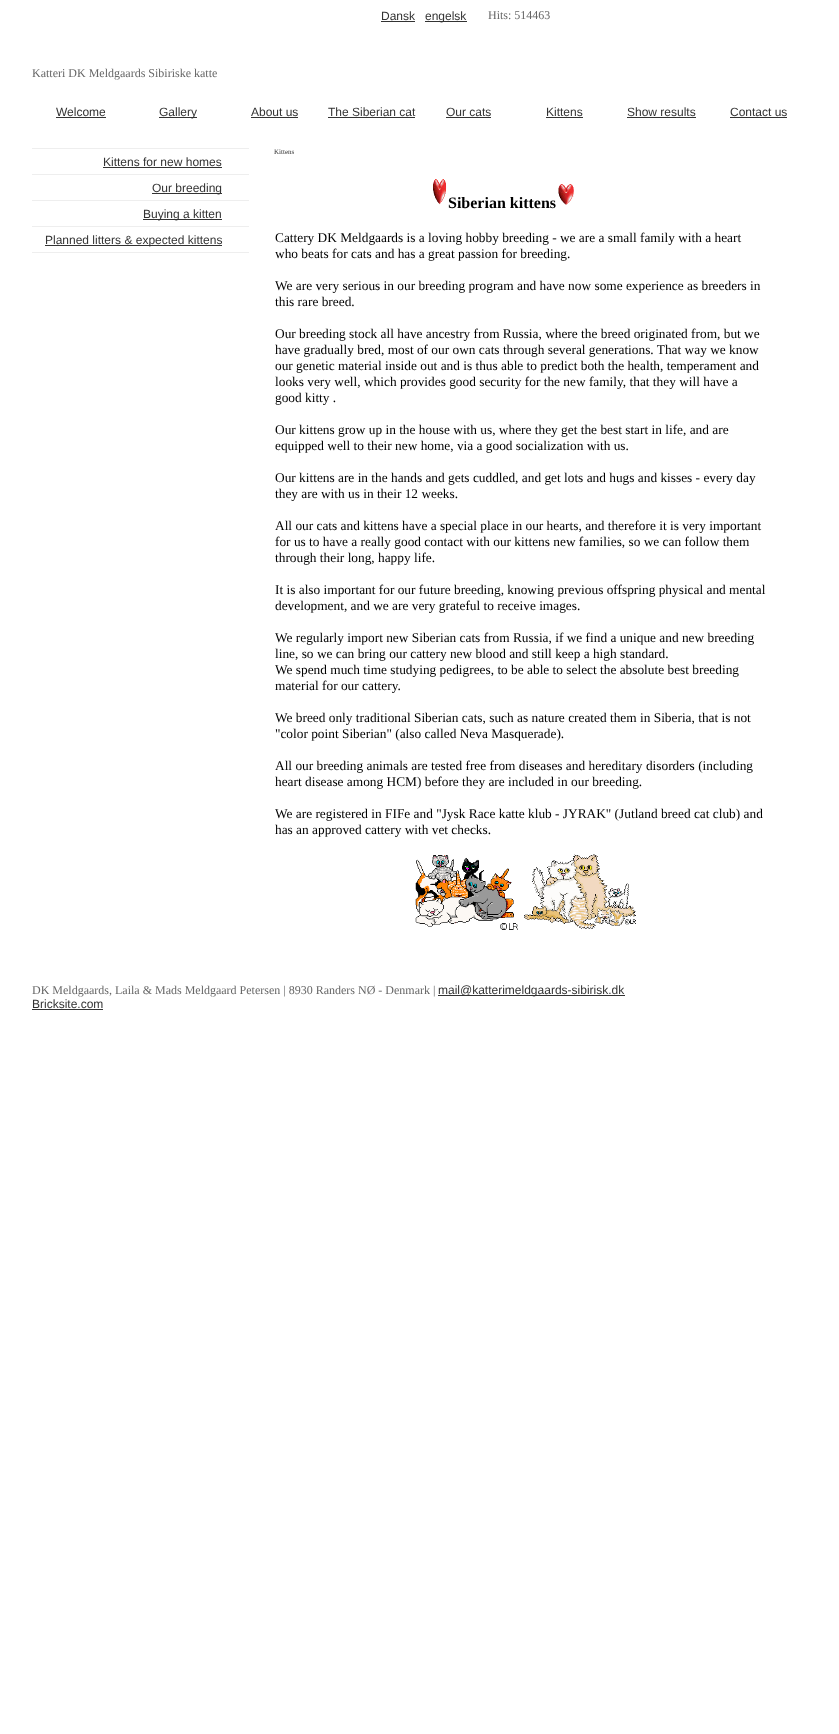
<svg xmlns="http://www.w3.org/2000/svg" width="839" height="1734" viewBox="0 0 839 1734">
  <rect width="100%" height="100%" fill="#fff"/>
  <path d="M381 21h34v1H381z" fill="#333"/>
  <path d="M425 21h42v1H425z" fill="#333"/>
  <path d="M56 117h50v1H56z" fill="#333"/>
  <path d="M159 117h38v1H159z" fill="#333"/>
  <path d="M251 117h47v1H251z" fill="#333"/>
  <path d="M328 117h87v1H328z" fill="#333"/>
  <path d="M446 117h45v1H446z" fill="#333"/>
  <path d="M546 117h37v1H546z" fill="#333"/>
  <path d="M627 117h69v1H627z" fill="#333"/>
  <path d="M730 117h57v1H730z" fill="#333"/>
  <path d="M32 148h217v1H32z" fill="#eee"/>
  <path d="M103 167h119v1H103z" fill="#333"/>
  <path d="M32 174h217v1H32z" fill="#eee"/>
  <path d="M152 193h70v1H152z" fill="#333"/>
  <path d="M32 200h217v1H32z" fill="#eee"/>
  <path d="M143 219h79v1H143z" fill="#333"/>
  <path d="M32 226h217v1H32z" fill="#eee"/>
  <path d="M45 245h177v1H45z" fill="#333"/>
  <path d="M32 252h217v1H32z" fill="#eee"/>
  <image x="433" y="179" width="14" height="26" href="img/1.png"/>
  <image x="558" y="184" width="16" height="21" href="img/2.png"/>
  <image x="415" y="855" width="103" height="75" href="img/3.png"/>
  <image x="524" y="854" width="112" height="75" href="img/4.png"/>
  <path d="M438 995h187v1H438z" fill="#333"/>
  <path d="M32 1009h71v1H32z" fill="#333"/>
  <g font-family="Liberation Sans" font-size="12" fill="#333">
    <text x="381" y="20">Dansk</text>
    <text x="425" y="20">engelsk</text>
  </g>
  <g font-family="Liberation Serif" font-size="12" fill="#666">
    <text x="488" y="19">Hits: 514463</text>
    <text x="32" y="77">Katteri DK Meldgaards Sibiriske katte</text>
  </g>
  <g font-family="Liberation Sans" font-size="12" fill="#333">
    <text x="56" y="116">Welcome</text>
    <text x="159" y="116">Gallery</text>
    <text x="251" y="116">About us</text>
    <text x="328" y="116">The Siberian cat</text>
    <text x="446" y="116">Our cats</text>
    <text x="546" y="116">Kittens</text>
    <text x="627" y="116">Show results</text>
    <text x="730" y="116">Contact us</text>
    <text x="103" y="166">Kittens for new homes</text>
    <text x="152" y="192">Our breeding</text>
    <text x="143" y="218">Buying a kitten</text>
    <text x="45" y="244">Planned litters &amp; expected kittens</text>
  </g>
  <text x="274" y="154" font-family="Liberation Serif" font-size="7" fill="#333">Kittens</text>
  <text x="448" y="208" font-family="Liberation Serif" font-size="16" font-weight="bold" fill="#000">Siberian kittens</text>
  <g font-family="Liberation Serif" font-size="13.35" fill="#000">
    <text x="275" y="242">Cattery DK Meldgaards is a loving hobby breeding - we are a small family with a heart</text>
    <text x="275" y="258">who beats for cats and has a great passion for breeding.</text>
    <text x="275" y="290">We are very serious in our breeding program and have now some experience as breeders in</text>
    <text x="275" y="306">this rare breed.</text>
    <text x="275" y="338">Our breeding stock all have ancestry from Russia, where the breed originated from, but we</text>
    <text x="275" y="354">have gradually bred, most of our own cats through several generations. That way we know</text>
    <text x="275" y="370">our genetic material inside out and is thus able to predict both the health, temperament and</text>
    <text x="275" y="386">looks very well, which provides good security for the new family, that they will have a</text>
    <text x="275" y="402">good kitty .</text>
    <text x="275" y="434">Our kittens grow up in the house with us, where they get the best start in life, and are</text>
    <text x="275" y="450">equipped well to their new home, via a good socialization with us.</text>
    <text x="275" y="482">Our kittens are in the hands and gets cuddled, and get lots and hugs and kisses - every day</text>
    <text x="275" y="498">they are with us in their 12 weeks.</text>
    <text x="275" y="530">All our cats and kittens have a special place in our hearts, and therefore it is very important</text>
    <text x="275" y="546">for us to have a really good contact with our kittens new families, so we can follow them</text>
    <text x="275" y="562">through their long, happy life.</text>
    <text x="275" y="594">It is also important for our future breeding, knowing previous offspring physical and mental</text>
    <text x="275" y="610">development, and we are very grateful to receive images.</text>
    <text x="275" y="642">We regularly import new Siberian cats from Russia, if we find a unique and new breeding</text>
    <text x="275" y="658">line, so we can bring our cattery new blood and still keep a high standard.</text>
    <text x="275" y="674">We spend much time studying pedigrees, to be able to select the absolute best breeding</text>
    <text x="275" y="690">material for our cattery.</text>
    <text x="275" y="722">We breed only traditional Siberian cats, such as nature created them in Siberia, that is not</text>
    <text x="275" y="738">"color point Siberian" (also called Neva Masquerade).</text>
    <text x="275" y="770">All our breeding animals are tested free from diseases and hereditary disorders (including</text>
    <text x="275" y="786">heart disease among HCM) before they are included in our breeding.</text>
    <text x="275" y="818">We are registered in FIFe and "Jysk Race katte klub - JYRAK" (Jutland breed cat club) and</text>
    <text x="275" y="834">has an approved cattery with vet checks.</text>
  </g>
  <text x="32" y="994" font-family="Liberation Serif" font-size="12" fill="#666">DK Meldgaards, Laila &amp; Mads Meldgaard Petersen | 8930 Randers NØ - Denmark |</text>
  <g font-family="Liberation Sans" font-size="12" fill="#333">
    <text x="438" y="994">mail@katterimeldgaards-sibirisk.dk</text>
    <text x="32" y="1008">Bricksite.com</text>
  </g>
</svg>
